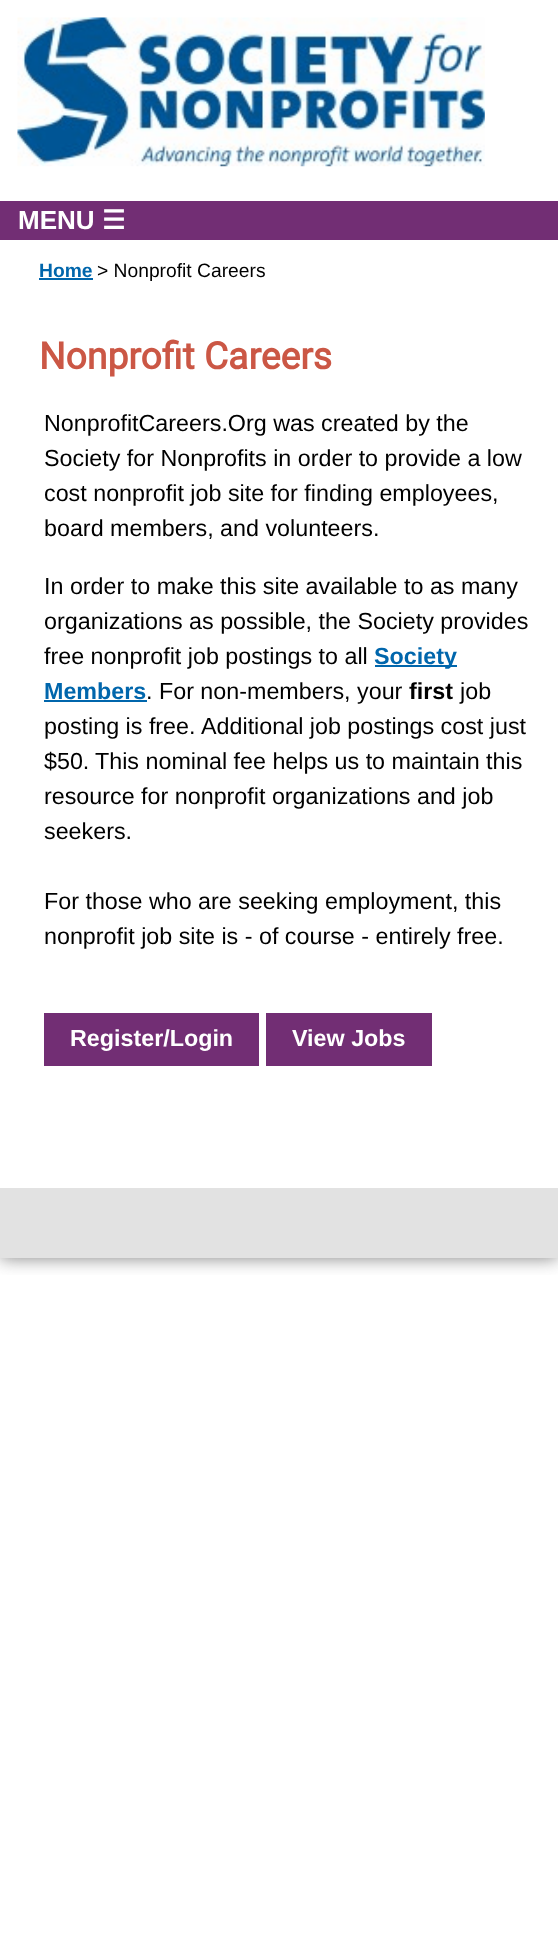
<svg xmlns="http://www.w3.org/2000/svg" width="558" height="1959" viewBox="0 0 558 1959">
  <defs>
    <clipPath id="clip1"><path d="M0 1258h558v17H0z"/></clipPath>
  </defs>
  <rect width="100%" height="100%" fill="#fff"/>
  <g clip-path="url(#clip1)">
    <path d="M0 0h558v1258H0z" fill="#4c4c4cb3" filter="blur(9px)"/>
  </g>
  <image x="17" y="17" width="468" height="150" href="img/1.png"/>
  <path d="M0 201h558v39H0z" fill="#722e74"/>
  <path d="M39 278h54v2H39z" fill="#0066ac"/>
  <path d="M375 665h82v2H375z" fill="#0066ac"/>
  <path d="M44 700h103v2H44z" fill="#0066ac"/>
  <path d="M44 1013h215v53H44z" fill="#722e74"/>
  <path d="M266 1013h166v53H266z" fill="#722e74"/>
  <path d="M0 1188h558v70H0z" fill="#e2e2e2"/>
  <text x="18" y="229" font-family="Liberation Sans" font-size="26" font-weight="bold" fill="#fff">MENU</text>
  <text x="102" y="229" font-family="DejaVu Sans" font-size="26" font-weight="bold" fill="#fff">☰</text>
  <text x="39" y="277" font-family="Liberation Sans" font-size="19.25" font-weight="bold" fill="#0066ac">Home</text>
  <text x="97" y="277" font-family="Liberation Sans" font-size="19.25" fill="#000">&gt; Nonprofit Careers</text>
  <text x="39" y="369" font-family="Roboto" font-size="37.25" font-weight="bold" fill="#cb5745">Nonprofit Careers</text>
  <g font-family="Liberation Sans" font-size="23.3" fill="#000">
    <text x="44" y="431">NonprofitCareers.Org was created by the</text>
    <text x="44" y="466">Society for Nonprofits in order to provide a low</text>
    <text x="44" y="501">cost nonprofit job site for finding employees,</text>
    <text x="44" y="536">board members, and volunteers.</text>
    <text x="44" y="594">In order to make this site available to as many</text>
    <text x="44" y="629">organizations as possible, the Society provides</text>
    <text x="44" y="664">free nonprofit job postings to all</text>
  </g>
  <g font-family="Liberation Sans" font-size="23.3" font-weight="bold" fill="#0066ac">
    <text x="374" y="664">Society</text>
    <text x="44" y="699">Members</text>
  </g>
  <text x="146" y="699" font-family="Liberation Sans" font-size="23.3" fill="#000">. For non-members, your</text>
  <text x="409" y="699" font-family="Liberation Sans" font-size="23.3" font-weight="bold" fill="#000">first</text>
  <g font-family="Liberation Sans" font-size="23.3" fill="#000">
    <text x="460" y="699">job</text>
    <text x="44" y="734">posting is free.</text>
    <text x="201" y="734">Additional job postings cost just</text>
    <text x="44" y="769">$50.</text>
    <text x="95" y="769">This nominal fee helps us to maintain this</text>
    <text x="44" y="804">resource for nonprofit organizations and job</text>
    <text x="44" y="839">seekers.</text>
    <text x="44" y="909">For those who are seeking employment, this</text>
    <text x="44" y="944">nonprofit job site is - of course - entirely free.</text>
  </g>
  <g font-family="Liberation Sans" font-size="23.3" font-weight="bold" fill="#fff">
    <text x="70" y="1046">Register/Login</text>
    <text x="292" y="1046">View Jobs</text>
  </g>
</svg>
